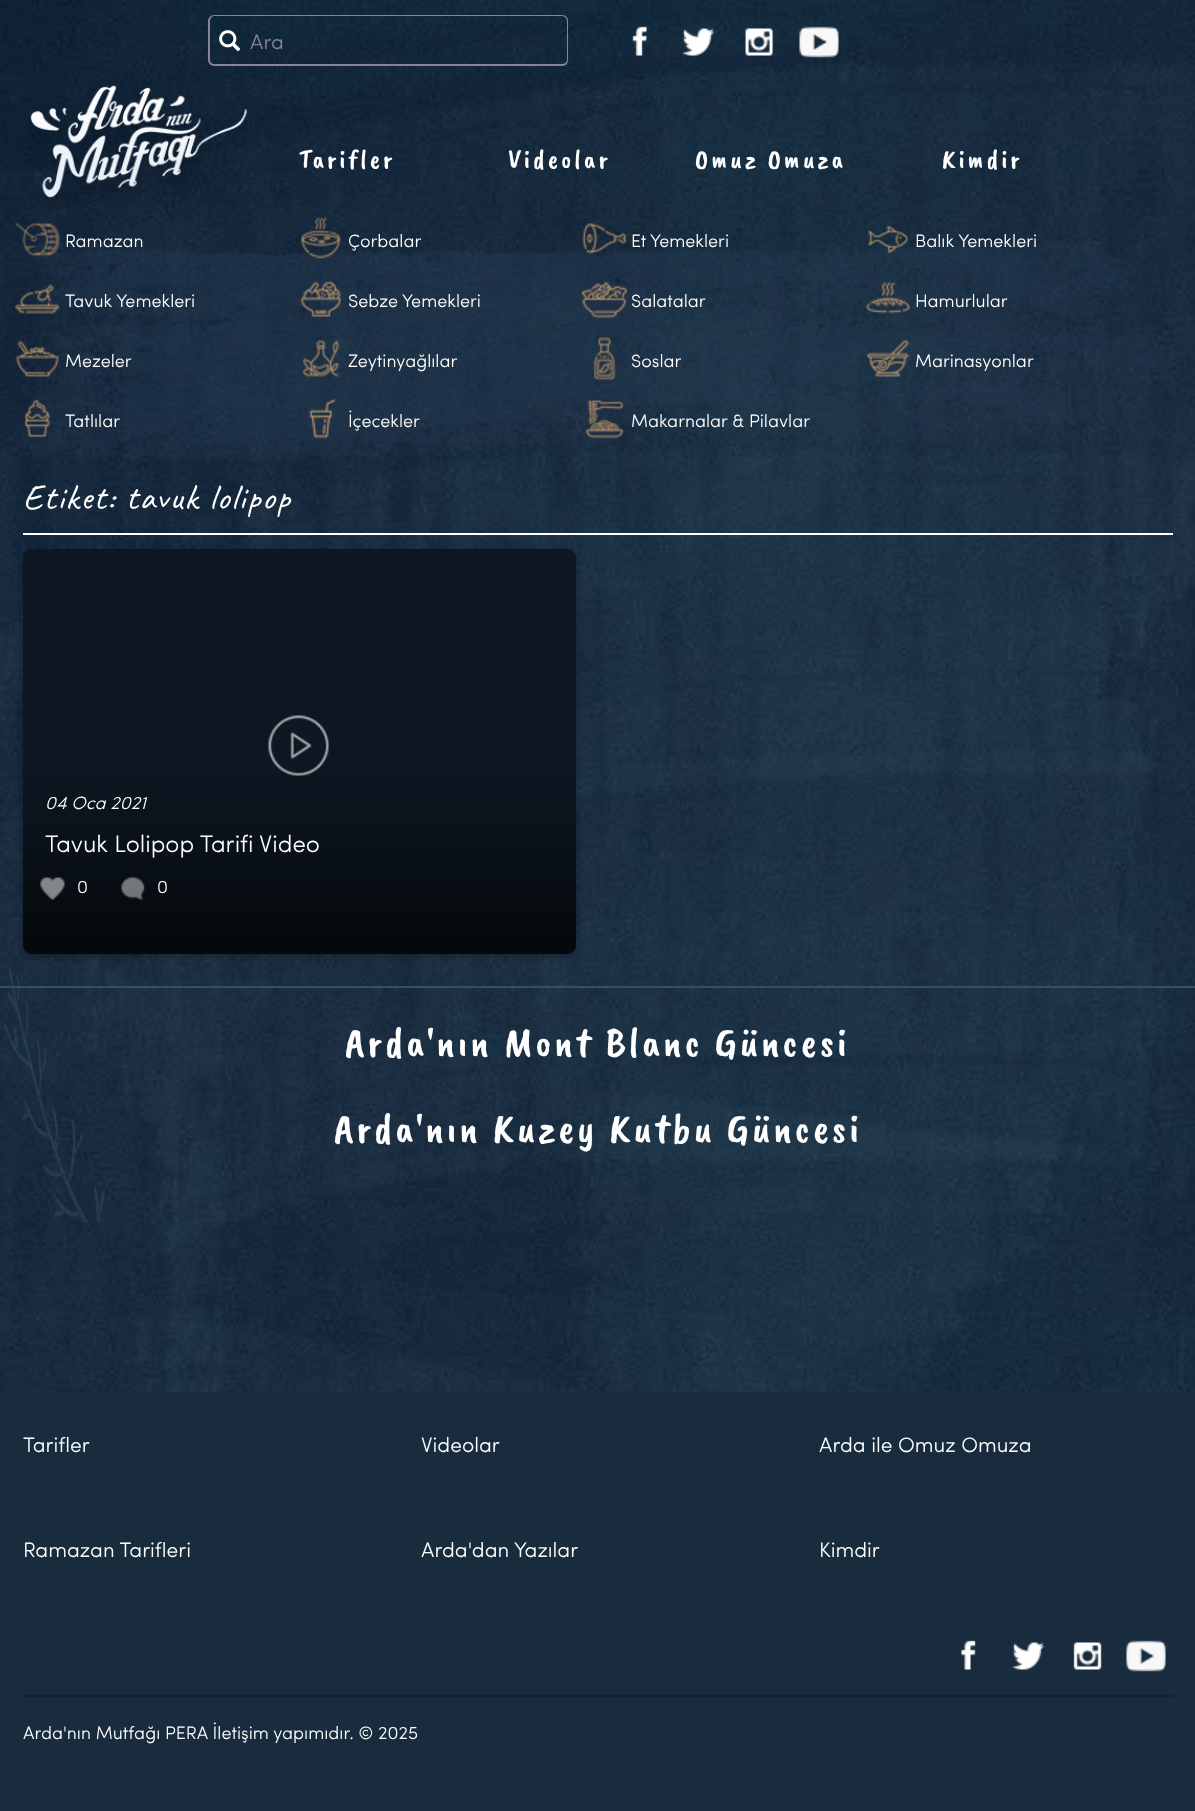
<svg xmlns="http://www.w3.org/2000/svg" width="1195" height="1811" viewBox="0 0 1195 1811">
  <defs>
    <linearGradient id="g1" gradientUnits="userSpaceOnUse" x1="299" y1="767" x2="299" y2="954"><stop offset="0" stop-color="#000" stop-opacity="0"/><stop offset="1" stop-color="#000" stop-opacity="0.65"/></linearGradient>
  </defs>
  <rect width="100%" height="100%" fill="#fff"/>
  <image x="0" y="0" width="1195" height="1392" href="img/1.png"/>
  <image x="3" y="965" width="102" height="258" href="img/2.png"/>
  <path d="M214 15H249V66H214C211 66 208 63 208 60V21C208 18 211 15 214 15ZM214 16H249V64H214C212 64 210 62 210 60V21C210 19 212 16 214 16Z" fill="#878494" fill-rule="evenodd"/>
  <image x="219" y="30" width="22" height="22" href="img/3.png"/>
  <path d="M249 15H562C566 15 568 18 568 21V60C568 63 566 66 562 66H249ZM249 16H562C565 16 567 19 567 21V60C567 62 565 64 562 64H249Z" fill="#878494" fill-rule="evenodd"/>
  <image x="632" y="26" width="15" height="30" href="img/4.png"/>
  <image x="682" y="28" width="33" height="28" href="img/5.png"/>
  <image x="745" y="28" width="28" height="28" href="img/6.png"/>
  <image x="799" y="26" width="40" height="32" href="img/7.png"/>
  <image x="30" y="85" width="217" height="125" href="img/8.png"/>
  <image x="5" y="238" width="1188" height="226" href="img/9.png"/>
  <image x="15" y="222" width="45" height="35" href="img/10.png"/>
  <image x="301" y="217" width="40" height="42" href="img/11.png"/>
  <image x="582" y="223" width="45" height="31" href="img/12.png"/>
  <image x="868" y="225" width="41" height="29" href="img/13.png"/>
  <image x="15" y="284" width="45" height="30" href="img/14.png"/>
  <image x="300" y="280" width="42" height="38" href="img/15.png"/>
  <image x="582" y="281" width="45" height="38" href="img/16.png"/>
  <image x="865" y="281" width="46" height="33" href="img/17.png"/>
  <image x="16" y="340" width="43" height="37" href="img/18.png"/>
  <image x="302" y="340" width="38" height="37" href="img/19.png"/>
  <image x="593" y="337" width="23" height="43" href="img/20.png"/>
  <image x="866" y="340" width="44" height="37" href="img/21.png"/>
  <image x="24" y="399" width="26" height="39" href="img/22.png"/>
  <image x="308" y="398" width="29" height="41" href="img/23.png"/>
  <image x="585" y="400" width="39" height="39" href="img/24.png"/>
  <path d="M23 533h1150v2H23z" fill="#fff"/>
  <rect x="23" y="551" width="553" height="405" rx="9" fill="#0000003b" filter="blur(3px)"/>
  <rect x="23" y="549" width="553" height="405" rx="9" fill="#192c3e"/>
  <rect x="23" y="549" width="553" height="405" rx="9" fill="#00000075"/>
  <image x="268" y="715" width="61" height="61" href="img/25.png"/>
  <path d="M23 767H576V945C576 950 572 954 567 954H32C27 954 23 950 23 945Z" fill="url(#g1)"/>
  <image x="40" y="877" width="25" height="23" href="img/26.png"/>
  <image x="121" y="877" width="24" height="23" href="img/27.png"/>
  <path d="M0 986h1195v2H0z" fill="#384f5f"/>
  <path d="M0 1392h1195v419H0z" fill="#192c3e"/>
  <image x="961" y="1640" width="15" height="30" href="img/28.png"/>
  <image x="1012" y="1642" width="33" height="28" href="img/29.png"/>
  <image x="1073" y="1642" width="29" height="28" href="img/30.png"/>
  <image x="1126" y="1640" width="40" height="32" href="img/31.png"/>
  <path d="M23 1695h1150v2H23z" fill="#13202d"/>
  <text x="250" y="49" font-family="Sofia" font-size="21" fill="#878494">Ara</text>
  <g font-family="Caveat Brush" font-size="27" letter-spacing="3" fill="#fff">
    <text x="299" y="168">Tarifler</text>
    <text x="508" y="168">Videolar</text>
    <text x="695" y="168">Omuz Omuza</text>
    <text x="942" y="168">Kimdir</text>
  </g>
  <g font-family="Sofia" font-size="18" fill="#fff">
    <text x="65" y="247">Ramazan</text>
    <text x="348" y="247">Çorbalar</text>
    <text x="631" y="247">Et Yemekleri</text>
    <text x="915" y="247">Balık Yemekleri</text>
    <text x="65" y="307">Tavuk Yemekleri</text>
    <text x="348" y="307">Sebze Yemekleri</text>
    <text x="631" y="307">Salatalar</text>
    <text x="915" y="307">Hamurlular</text>
    <text x="65" y="367">Mezeler</text>
    <text x="348" y="367">Zeytinyağlılar</text>
    <text x="631" y="367">Soslar</text>
    <text x="915" y="367">Marinasyonlar</text>
    <text x="65" y="427">Tatlılar</text>
    <text x="348" y="427">İçecekler</text>
    <text x="631" y="427">Makarnalar &amp; Pilavlar</text>
  </g>
  <text x="23" y="509" font-family="Caveat" font-size="36" letter-spacing="1.5" fill="#fff">Etiket: tavuk lolipop</text>
  <text x="45" y="809" font-family="Sofia" font-size="18" font-style="italic" fill="#fff">04 Oca 2021</text>
  <text x="45" y="852" font-family="Sofia" font-size="24" fill="#fff">Tavuk Lolipop Tarifi Video</text>
  <g font-family="Sofia" font-size="18" fill="#fff">
    <text x="77" y="893">0</text>
    <text x="157" y="893">0</text>
  </g>
  <g font-family="Caveat Brush" font-size="42" letter-spacing="3" fill="#fff">
    <text x="345" y="1056">Arda'nın Mont Blanc Güncesi</text>
    <text x="334" y="1142">Arda'nın Kuzey Kutbu Güncesi</text>
  </g>
  <g font-family="Sofia" font-size="21" fill="#fff">
    <text x="23" y="1452">Tarifler</text>
    <text x="421" y="1452">Videolar</text>
    <text x="819" y="1452">Arda ile Omuz Omuza</text>
    <text x="23" y="1557">Ramazan Tarifleri</text>
    <text x="421" y="1557">Arda'dan Yazılar</text>
    <text x="819" y="1557">Kimdir</text>
  </g>
  <text x="23" y="1739" font-family="Sofia" font-size="18" fill="#fff">Arda'nın Mutfağı PERA İletişim yapımıdır. © 2025</text>
</svg>
